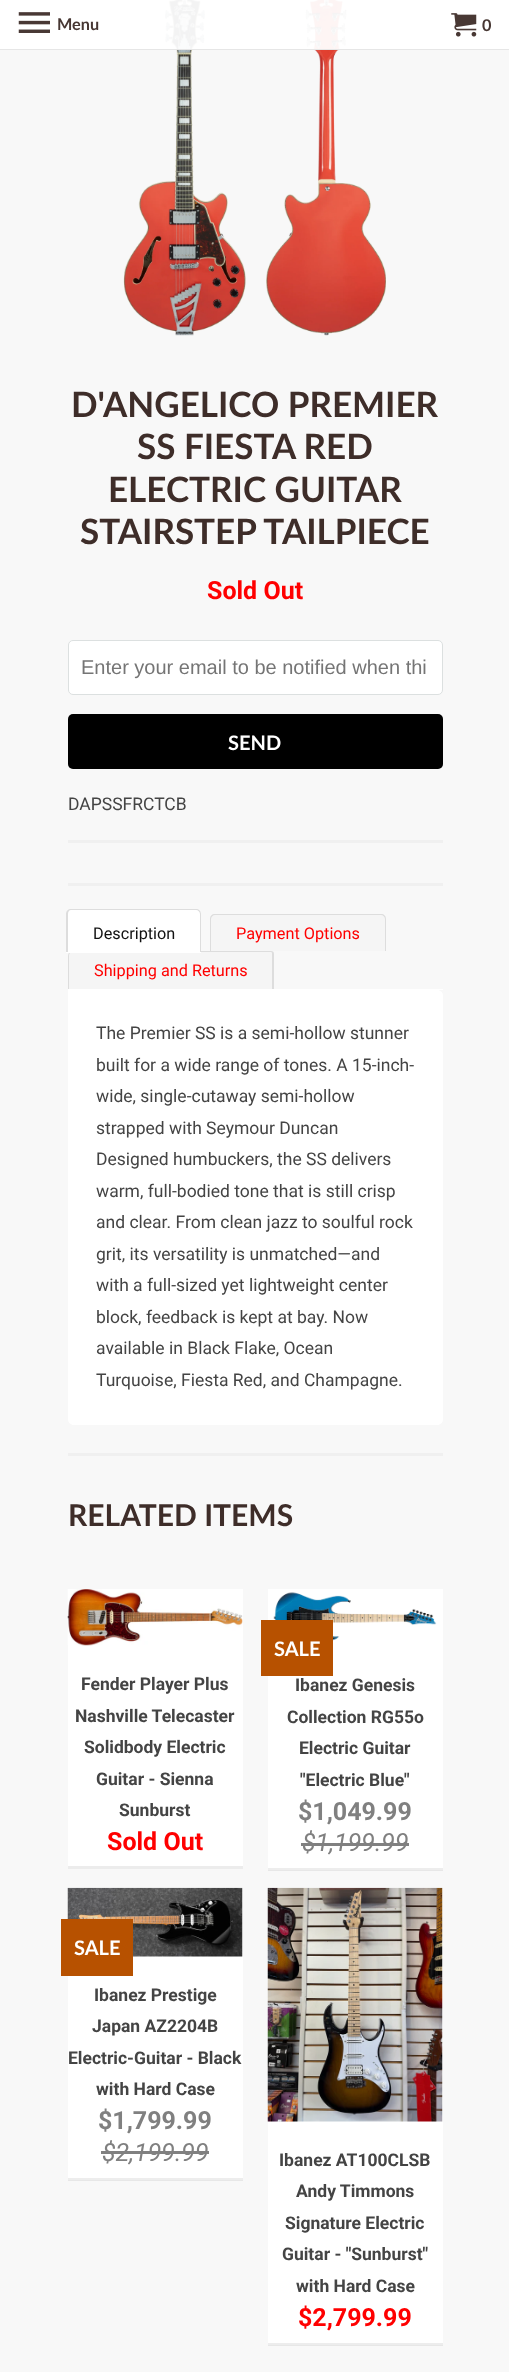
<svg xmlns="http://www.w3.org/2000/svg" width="509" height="2372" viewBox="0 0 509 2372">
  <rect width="100%" height="100%" fill="#f8f8f8"/>
  <path d="M268 2345h175v1H268z" fill="#e7e7e7"/>
  <path d="M68 2180h175v1H68z" fill="#e7e7e7"/>
  <path d="M268 1870h175v1H268z" fill="#e7e7e7"/>
  <image x="123" y="0" width="263" height="336" href="img/3.png"/>
  <path d="M0 0h509v50H0z" fill="#fffffff2"/>
  <path d="M0 49h509v1H0z" fill="#e5e5e5f2"/>
  <image x="18" y="12" width="32" height="21" href="img/1.png"/>
  <image x="451" y="13" width="26" height="24" href="img/2.png"/>
  <rect x="68.5" y="640.5" width="374" height="54" rx="4.5" fill="#fff" stroke="#dce0e0"/>
  <rect x="68" y="714" width="375" height="55" rx="5" fill="#000"/>
  <path d="M68 760V764C68 767 70 769 73 769H438C441 769 443 767 443 764V719C443 718 443 717 442 716V760C442 763 440 765 438 765H72C70 765 68 763 68 760Z" fill="#0000001a"/>
  <path d="M68 840h375v3H68z" fill="#f0f0f0"/>
  <path d="M68 883h375v3H68z" fill="#f0f0f0"/>
  <path d="M68 989h375v1H68z" fill="#fff"/>
  <path d="M73 951H271.5C273 951 274 952 274 953.5V989H68V956C68 953 70 951 73 951Z" fill="#f5f5f5"/>
  <path d="M72 951H271C273 951 274 952 274 954V989H68V956C68 953 70 951 72 951ZM72 952H271C272 952 272 953 272 954V989H69V956C69 954 70 952 72 952Z" fill="#ddd" fill-rule="evenodd"/>
  <path d="M71 909H196C199 909 201 911 201 914V953H66V914C66 911 68 909 71 909Z" fill="#fff"/>
  <path d="M71 909H196C199 909 201 911 201 914V952H66V914C66 911 68 909 71 909ZM71 910H196C198 910 200 912 200 914V952H68V914C68 912 69 910 71 910Z" fill="#ddd" fill-rule="evenodd"/>
  <path d="M215 914H381C384 914 386 916 386 919V951H210V919C210 916 212 914 215 914Z" fill="#f5f5f5"/>
  <path d="M215 914H381C384 914 386 916 386 919V951H210V919C210 916 212 914 215 914ZM215 915H381C383 915 385 917 385 919V951H211V919C211 917 213 915 215 915Z" fill="#ddd" fill-rule="evenodd"/>
  <path d="M68 990H437C440.5 990 443 992.5 443 996V1419C443 1422.5 440.5 1425 437 1425H74C70.5 1425 68 1422.5 68 1419Z" fill="#fff"/>
  <path d="M68 1453h375v3H68z" fill="#f0f0f0"/>
  <path d="M68 1645h175v221H68z" fill="#fff"/>
  <path d="M68 1866h175v3H68z" fill="#ececec"/>
  <path d="M242 1589h1v56H242z" fill="#fff"/>
  <image x="67" y="1589" width="176" height="57" href="img/4.png"/>
  <path d="M268 1589h175v279H268z" fill="#fff"/>
  <path d="M268 1868h175v2H268z" fill="#ededed"/>
  <image x="273" y="1592" width="164" height="49" href="img/5.png"/>
  <path d="M261 1620h72v56H261z" fill="#b75100"/>
  <path d="M301 1843h108v3H301z" fill="#808080"/>
  <path d="M68 1956h175v222H68z" fill="#fff"/>
  <path d="M68 2178h175v2H68z" fill="#ededed"/>
  <path d="M242 1888h1v68H242z" fill="#fff"/>
  <image x="67" y="1887" width="176" height="70" href="img/6.png"/>
  <path d="M61 1919h72v57H61z" fill="#b75100"/>
  <path d="M101 2151h108v3H101z" fill="#808080"/>
  <path d="M268 2121h175v222H268z" fill="#fff"/>
  <path d="M268 2343h175v2H268z" fill="#ededed"/>
  <path d="M442 1888h1v233H442z" fill="#fff"/>
  <image x="267" y="1887" width="176" height="235" href="img/7.png"/>
  <g font-family="Lato" font-size="16.25" font-weight="bold" fill="#473733">
    <text x="57" y="30">Menu</text>
    <text x="482" y="31">0</text>
  </g>
  <g font-family="Lato" font-size="35" font-weight="bold" fill="#3e2d29">
    <text x="71" y="417">D'ANGELICO PREMIER</text>
    <text x="137" y="459">SS FIESTA RED</text>
    <text x="108" y="502">ELECTRIC GUITAR</text>
    <text x="80" y="544">STAIRSTEP TAILPIECE</text>
  </g>
  <text x="207" y="599" font-family="Roboto" font-size="25" font-weight="bold" fill="#f00">Sold Out</text>
  <text x="81" y="674" font-family="Liberation Sans" font-size="20" fill="#757575">Enter your email to be notified when thi</text>
  <text x="228" y="750" font-family="Lato" font-size="20" font-weight="bold" fill="#fff">SEND</text>
  <text x="68" y="810" font-family="Roboto" font-size="17.5" fill="#444">DAPSSFRCTCB</text>
  <text x="93" y="939" font-family="Roboto" font-size="16.25" fill="#111">Description</text>
  <g font-family="Roboto" font-size="16.25" fill="#f00">
    <text x="236" y="939">Payment Options</text>
    <text x="94" y="976">Shipping and Returns</text>
  </g>
  <g font-family="Roboto" font-size="17.5" fill="#444">
    <text x="96" y="1039">The Premier SS is a semi-hollow stunner</text>
    <text x="96" y="1071">built for a wide range of tones. A 15-inch-</text>
    <text x="96" y="1102">wide, single-cutaway semi-hollow</text>
    <text x="96" y="1134">strapped with Seymour Duncan</text>
    <text x="96" y="1165">Designed humbuckers, the SS delivers</text>
    <text x="96" y="1197">warm, full-bodied tone that is still crisp</text>
    <text x="96" y="1228">and clear. From clean jazz to soulful rock</text>
    <text x="96" y="1260">grit, its versatility is unmatched—and</text>
    <text x="96" y="1291">with a full-sized yet lightweight center</text>
    <text x="96" y="1323">block, feedback is kept at bay. Now</text>
    <text x="96" y="1354">available in Black Flake, Ocean</text>
    <text x="96" y="1386">Turquoise, Fiesta Red, and Champagne.</text>
  </g>
  <text x="68" y="1526" font-family="Lato" font-size="30" font-weight="bold" fill="#3e2d29">RELATED ITEMS</text>
  <g font-family="Roboto" font-size="17.5" font-weight="bold" fill="#444">
    <text x="81" y="1690">Fender Player Plus</text>
    <text x="75" y="1722">Nashville Telecaster</text>
    <text x="84" y="1753">Solidbody Electric</text>
    <text x="96" y="1785">Guitar - Sienna</text>
    <text x="119" y="1816">Sunburst</text>
  </g>
  <text x="107" y="1850" font-family="Roboto" font-size="25" font-weight="bold" fill="#f00">Sold Out</text>
  <text x="274" y="1656" font-family="Lato" font-size="20" font-weight="bold" fill="#fff">SALE</text>
  <g font-family="Roboto" font-size="17.5" font-weight="bold" fill="#444">
    <text x="295" y="1691">Ibanez Genesis</text>
    <text x="287" y="1723">Collection RG55o</text>
    <text x="299" y="1754">Electric Guitar</text>
    <text x="300" y="1786">"Electric Blue"</text>
  </g>
  <text x="298" y="1820" font-family="Roboto" font-size="25" font-weight="bold" fill="#808080">$1,049.99</text>
  <text x="302" y="1851" font-family="Roboto" font-size="25" font-style="italic" fill="#808080">$1,199.99</text>
  <text x="74" y="1955" font-family="Lato" font-size="20" font-weight="bold" fill="#fff">SALE</text>
  <g font-family="Roboto" font-size="17.5" font-weight="bold" fill="#444">
    <text x="94" y="2001">Ibanez Prestige</text>
    <text x="92" y="2032">Japan AZ2204B</text>
    <text x="68" y="2064">Electric-Guitar - Black</text>
    <text x="96" y="2095">with Hard Case</text>
  </g>
  <text x="98" y="2129" font-family="Roboto" font-size="25" font-weight="bold" fill="#808080">$1,799.99</text>
  <text x="102" y="2161" font-family="Roboto" font-size="25" font-style="italic" fill="#808080">$2,199.99</text>
  <g font-family="Roboto" font-size="17.5" font-weight="bold" fill="#444">
    <text x="279" y="2166">Ibanez AT100CLSB</text>
    <text x="296" y="2197">Andy Timmons</text>
    <text x="285" y="2229">Signature Electric</text>
    <text x="282" y="2260">Guitar - "Sunburst"</text>
    <text x="296" y="2292">with Hard Case</text>
  </g>
  <text x="298" y="2326" font-family="Roboto" font-size="25" font-weight="bold" fill="#f00">$2,799.99</text>
</svg>
